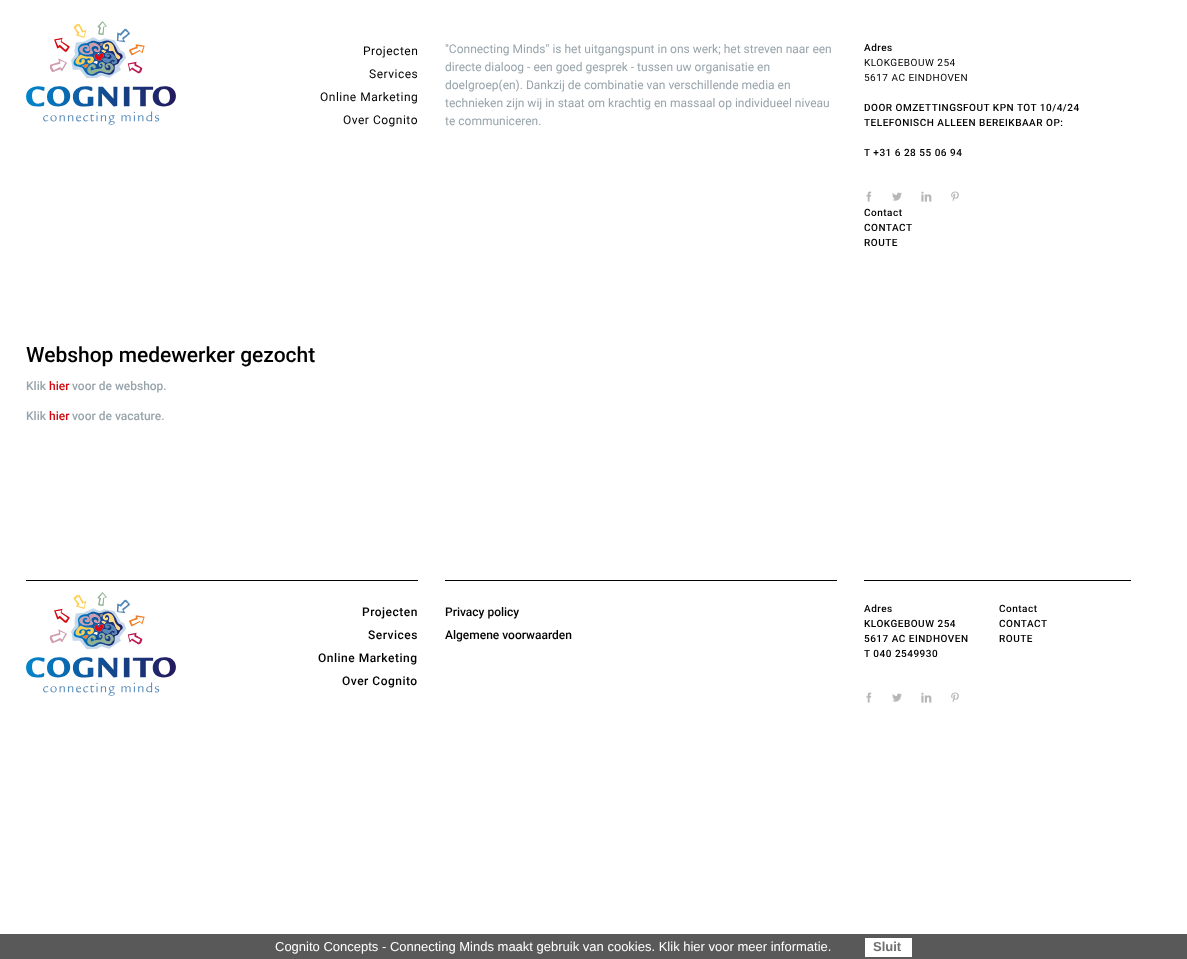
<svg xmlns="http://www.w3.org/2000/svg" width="1187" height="959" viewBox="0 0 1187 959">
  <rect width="100%" height="100%" fill="#fff"/>
  <image x="26" y="21" width="150" height="104" href="img/1.png"/>
  <image x="866" y="191" width="6" height="11" href="img/2.png"/>
  <image x="892" y="192" width="10" height="9" href="img/3.png"/>
  <image x="921" y="191" width="11" height="11" href="img/4.png"/>
  <image x="951" y="191" width="8" height="11" href="img/5.png"/>
  <path d="M26 580h392v1H26z" fill="#000"/>
  <image x="26" y="592" width="150" height="104" href="img/6.png"/>
  <path d="M445 580h392v1H445z" fill="#000"/>
  <path d="M864 580h267v1H864z" fill="#000"/>
  <image x="866" y="692" width="6" height="11" href="img/2.png"/>
  <image x="892" y="693" width="10" height="9" href="img/3.png"/>
  <image x="921" y="692" width="11" height="11" href="img/4.png"/>
  <image x="951" y="692" width="8" height="11" href="img/5.png"/>
  <path d="M0 934h1187v25H0z" fill="#595959"/>
  <path d="M865 938h47v19H865z" fill="#fff"/>
  <g font-family="Roboto" font-size="12" letter-spacing="0.5" fill="#000">
    <text x="363" y="55">Projecten</text>
    <text x="369" y="78">Services</text>
    <text x="320" y="101">Online Marketing</text>
    <text x="343" y="124">Over Cognito</text>
  </g>
  <g font-family="Roboto" font-size="12" fill="#98a4ab">
    <text x="445" y="53">"Connecting Minds" is het uitgangspunt in ons werk; het streven naar een</text>
    <text x="445" y="71">directe dialoog - een goed gesprek - tussen uw organisatie en</text>
    <text x="445" y="89">doelgroep(en). Dankzij de combinatie van verschillende media en</text>
    <text x="445" y="107">technieken zijn wij in staat om krachtig en massaal op individueel niveau</text>
    <text x="445" y="125">te communiceren.</text>
  </g>
  <text x="864" y="51" font-family="Roboto" font-size="10" font-weight="500" letter-spacing="0.5" fill="#000">Adres</text>
  <g font-family="Roboto" font-size="10" letter-spacing="0.5" fill="#000">
    <text x="864" y="66">KLOKGEBOUW 254</text>
    <text x="864" y="81">5617 AC EINDHOVEN</text>
  </g>
  <g font-family="Roboto" font-size="10" font-weight="500" letter-spacing="0.5" fill="#000">
    <text x="864" y="111">DOOR OMZETTINGSFOUT KPN TOT 10/4/24</text>
    <text x="864" y="126">TELEFONISCH ALLEEN BEREIKBAAR OP:</text>
    <text x="864" y="156">T +31 6 28 55 06 94</text>
    <text x="864" y="216">Contact</text>
    <text x="864" y="231">CONTACT</text>
    <text x="864" y="246">ROUTE</text>
  </g>
  <text x="26" y="362" font-family="Roboto" font-size="21" font-weight="500" fill="#000">Webshop medewerker gezocht</text>
  <text x="26" y="390" font-family="Roboto" font-size="12" font-weight="500" fill="#98a4ab">Klik</text>
  <text x="49" y="390" font-family="Roboto" font-size="12" font-weight="500" fill="#d10a11">hier</text>
  <g font-family="Roboto" font-size="12" font-weight="500" fill="#98a4ab">
    <text x="72" y="390">voor de webshop.</text>
    <text x="26" y="420">Klik</text>
  </g>
  <text x="49" y="420" font-family="Roboto" font-size="12" font-weight="500" fill="#d10a11">hier</text>
  <text x="72" y="420" font-family="Roboto" font-size="12" font-weight="500" fill="#98a4ab">voor de vacature.</text>
  <g font-family="Roboto" font-size="12" font-weight="500" letter-spacing="0.5" fill="#000">
    <text x="362" y="616">Projecten</text>
    <text x="368" y="639">Services</text>
    <text x="318" y="662">Online Marketing</text>
    <text x="342" y="685">Over Cognito</text>
  </g>
  <g font-family="Roboto" font-size="12" font-weight="500" fill="#000">
    <text x="445" y="616">Privacy policy</text>
    <text x="445" y="639">Algemene voorwaarden</text>
  </g>
  <g font-family="Roboto" font-size="10" font-weight="500" letter-spacing="0.5" fill="#000">
    <text x="864" y="612">Adres</text>
    <text x="864" y="627">KLOKGEBOUW 254</text>
    <text x="864" y="642">5617 AC EINDHOVEN</text>
    <text x="864" y="657">T 040 2549930</text>
    <text x="999" y="612">Contact</text>
    <text x="999" y="627">CONTACT</text>
    <text x="999" y="642">ROUTE</text>
  </g>
  <text x="275" y="951" font-family="Liberation Sans" font-size="13" fill="#fff">Cognito Concepts - Connecting Minds maakt gebruik van cookies. Klik hier voor meer informatie.</text>
  <text x="873" y="951" font-family="Liberation Sans" font-size="13" font-weight="bold" fill="#6f6f6f">Sluit</text>
</svg>
